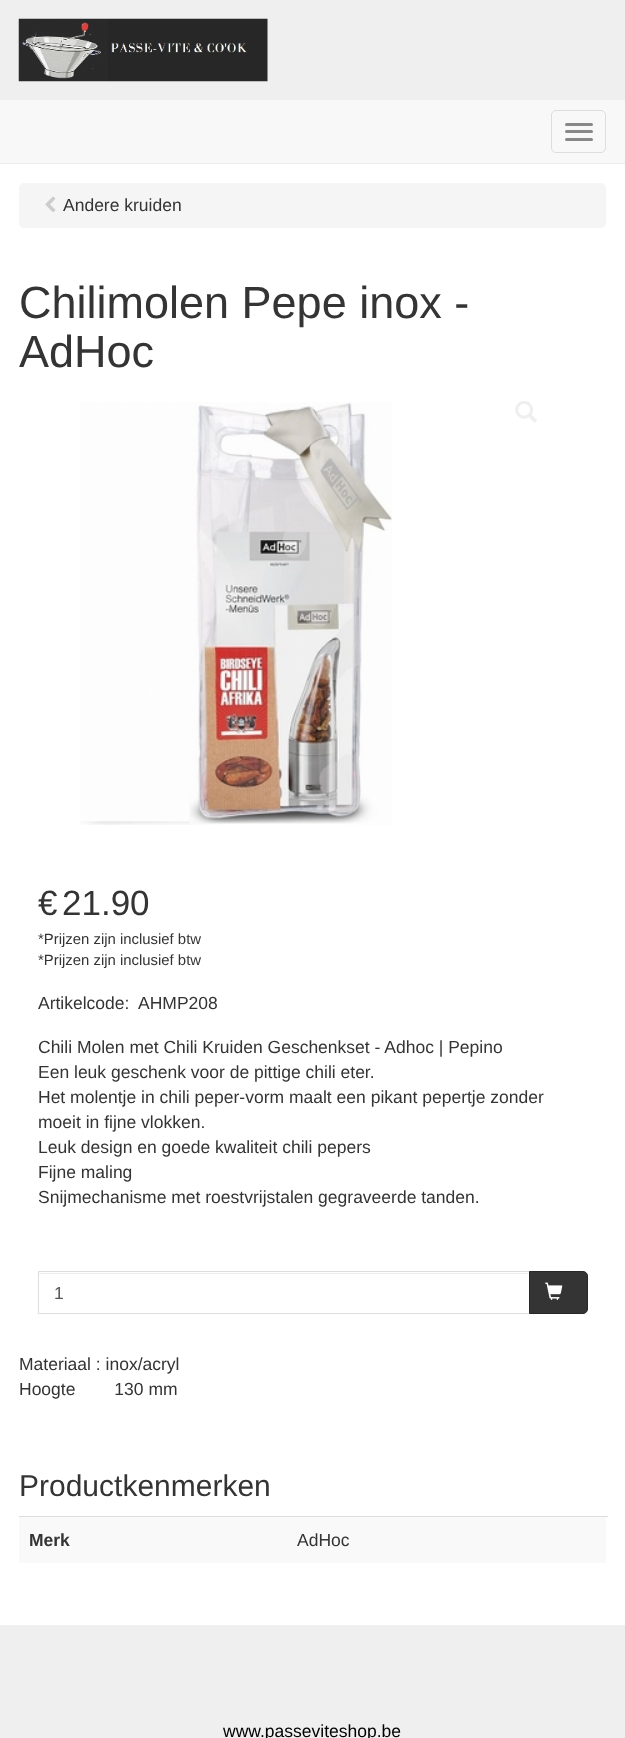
<svg xmlns="http://www.w3.org/2000/svg" width="625" height="1738" viewBox="0 0 625 1738">
  <rect width="100%" height="100%" fill="#fff"/>
  <path d="M0 0h625v100H0z" fill="#efefef"/>
  <image x="18" y="18" width="250" height="64" href="img/1.png"/>
  <path d="M0 100h625v63H0z" fill="#f8f8f8"/>
  <path d="M0 163h625v1H0z" fill="#ebebeb"/>
  <rect x="551.5" y="110.5" width="54" height="42" rx="4.5" fill="none" stroke="#ddd"/>
  <rect x="565" y="123" width="28" height="3" rx="1.5" fill="#888"/>
  <rect x="565" y="130" width="28" height="3" rx="1.5" fill="#888"/>
  <rect x="565" y="138" width="28" height="3" rx="1.5" fill="#888"/>
  <rect x="19" y="183" width="587" height="45" rx="5" fill="#f5f5f5"/>
  <image x="45" y="196" width="11" height="16" href="img/2.png"/>
  <image x="80" y="402" width="312" height="423" href="img/3.png"/>
  <image x="515" y="401" width="22" height="22" href="img/4.png"/>
  <path d="M39 1273h490v1H39z" fill="#ececec"/>
  <path d="M38.5 1271.5h491v42H38.5z" fill="none" stroke="#ddd"/>
  <path d="M529.5 1271.5H583C585.5 1271.5 587.5 1273.5 587.5 1276V1309C587.5 1311.5 585.5 1313.5 583 1313.5H529.5Z" fill="#343434" stroke="#272727"/>
  <image x="545" y="1282" width="18" height="18" href="img/5.png"/>
  <path d="M19 1517h587v46H19z" fill="#f9f9f9"/>
  <path d="M19 1516h589v1H19z" fill="#ddd"/>
  <path d="M0 1625h625v113H0z" fill="#efefef"/>
  <text x="63" y="211" font-family="Liberation Sans" font-size="17.5" fill="#343434">Andere kruiden</text>
  <g font-family="Liberation Sans" font-size="45" fill="#343434">
    <text x="19" y="318">Chilimolen Pepe inox -</text>
    <text x="19" y="367">AdHoc</text>
  </g>
  <g font-family="Liberation Sans" font-size="35" fill="#343434">
    <text x="38" y="915">€</text>
    <text x="62" y="915">21.90</text>
  </g>
  <g font-family="Liberation Sans" font-size="14.9" fill="#343434">
    <text x="38" y="944">*Prijzen zijn inclusief btw</text>
    <text x="38" y="965">*Prijzen zijn inclusief btw</text>
  </g>
  <g font-family="Liberation Sans" font-size="17.5" fill="#343434">
    <text x="38" y="1009">Artikelcode:</text>
    <text x="138" y="1009">AHMP208</text>
    <text x="38" y="1053">Chili Molen met Chili Kruiden Geschenkset - Adhoc | Pepino</text>
    <text x="38" y="1078">Een leuk geschenk voor de pittige chili eter.</text>
    <text x="38" y="1103">Het molentje in chili peper-vorm maalt een pikant pepertje zonder</text>
    <text x="38" y="1128">moeit in fijne vlokken.</text>
    <text x="38" y="1153">Leuk design en goede kwaliteit chili pepers</text>
    <text x="38" y="1178">Fijne maling</text>
    <text x="38" y="1203">Snijmechanisme met roestvrijstalen gegraveerde tanden.</text>
  </g>
  <text x="54" y="1299" font-family="Liberation Sans" font-size="17.5" fill="#565656">1</text>
  <g font-family="Liberation Sans" font-size="17.5" fill="#343434">
    <text x="19" y="1370">Materiaal : inox/acryl</text>
    <text x="19" y="1395" xml:space="preserve">Hoogte        130 mm</text>
  </g>
  <text x="19" y="1496" font-family="Liberation Sans" font-size="30" fill="#343434">Productkenmerken</text>
  <text x="29" y="1546" font-family="Liberation Sans" font-size="17.5" font-weight="bold" fill="#343434">Merk</text>
  <text x="297" y="1546" font-family="Liberation Sans" font-size="17.5" fill="#343434">AdHoc</text>
  <text x="223" y="1737" font-family="Liberation Sans" font-size="17.5" fill="#000">www.passeviteshop.be</text>
</svg>
